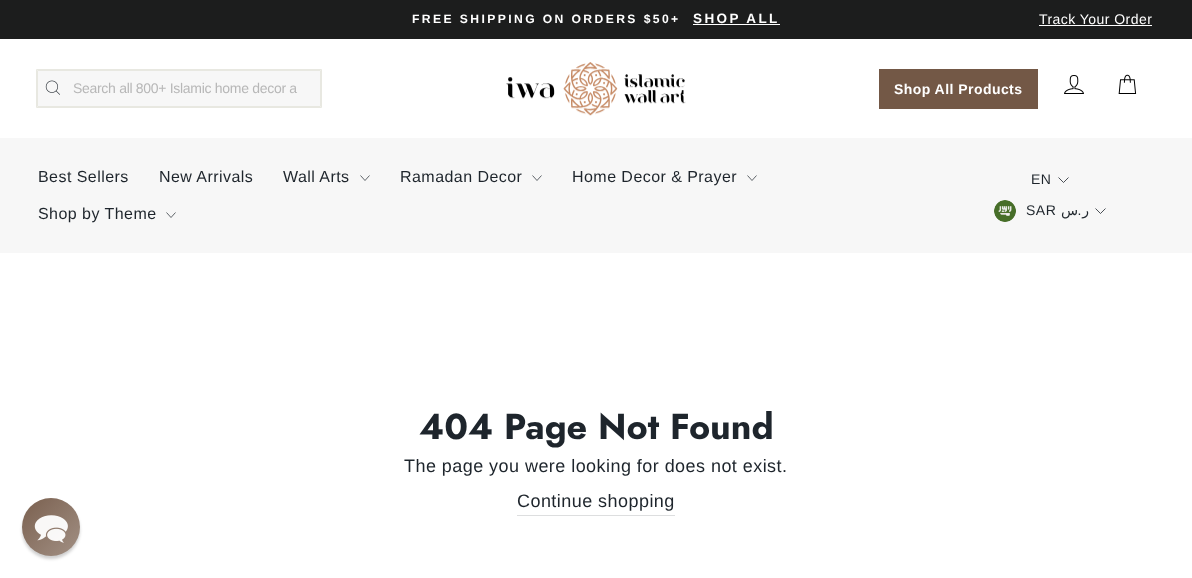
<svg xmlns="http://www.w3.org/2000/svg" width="1192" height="578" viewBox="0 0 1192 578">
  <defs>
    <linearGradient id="g1" gradientUnits="userSpaceOnUse" x1="22" y1="498" x2="80" y2="556"><stop offset="0" stop-color="#7a604f"/><stop offset="1" stop-color="#a29084"/></linearGradient>
  </defs>
  <rect width="100%" height="100%" fill="#fff"/>
  <path d="M0 0h1192v39H0z" fill="#1c1d1d"/>
  <path d="M693 24h87v1H693z" fill="#fff"/>
  <path d="M1039 25h113v1H1039z" fill="#fff"/>
  <path d="M36.5 69.5h285v38H36.5z" fill="none" stroke="#e8e8e1"/>
  <path d="M37.5 70.5h283v36H37.5z" fill="#f7f7f7" stroke="#e8e8e1"/>
  <image x="45" y="80" width="15" height="15" href="img/1.png"/>
  <image x="506" y="62" width="180" height="54" href="img/2.png"/>
  <path d="M879 69h159v40H879z" fill="#735846"/>
  <image x="1064" y="75" width="20" height="19" href="img/3.png"/>
  <image x="1118" y="74" width="19" height="20" href="img/4.png"/>
  <path d="M0 138h1192v115H0z" fill="#f7f7f7"/>
  <path d="M360.5 175.5L365 180.5L369.5 175.5" fill="none" stroke="#1e252c" stroke-width="0.7"/>
  <path d="M532.5 175.5L537 180.5L541.5 175.5" fill="none" stroke="#1e252c" stroke-width="0.7"/>
  <path d="M747.5 175.5L752 180.5L756.5 175.5" fill="none" stroke="#1e252c" stroke-width="0.7"/>
  <path d="M166.5 212.5L171 217.5L175.5 212.5" fill="none" stroke="#1e252c" stroke-width="0.7"/>
  <path d="M1058.5 177.5L1063.5 182.5L1068.5 177.5" fill="none" stroke="#1e252c" stroke-width="0.8"/>
  <image x="994" y="200" width="22" height="22" href="img/5.png"/>
  <path d="M1095.5 208.5L1100.5 213.5L1105.5 208.5" fill="none" stroke="#1e252c" stroke-width="0.8"/>
  <path d="M517 515h158v1H517z" fill="#dddedf"/>
  <rect x="22" y="501" width="58" height="58" rx="29" fill="#0d0d0d33" filter="blur(1.5px)"/>
  <circle cx="51" cy="527" r="29" fill="url(#g1)"/>
  <image x="34" y="515" width="34" height="28" href="img/6.png"/>
  <text x="412" y="23" font-family="Liberation Sans" font-size="12.15" font-weight="bold" letter-spacing="2.4" fill="#fff">FREE SHIPPING ON ORDERS $50+</text>
  <text x="693" y="23" font-family="Liberation Sans" font-size="13.5" font-weight="bold" letter-spacing="2.4" fill="#fff">SHOP ALL</text>
  <text x="1039" y="24" font-family="Liberation Sans" font-size="14" letter-spacing="0.45" fill="#fff">Track Your Order</text>
  <text x="73" y="93" font-family="Liberation Sans" font-size="14" letter-spacing="-0.3" fill="#b7b7b7">Search all 800+ Islamic home decor a</text>
  <text x="894" y="94" font-family="Liberation Sans" font-size="14" font-weight="bold" letter-spacing="0.45" fill="#fff">Shop All Products</text>
  <g font-family="Liberation Sans" font-size="16" letter-spacing="0.45" fill="#1e252c">
    <text x="38" y="182">Best Sellers</text>
    <text x="159" y="182">New Arrivals</text>
    <text x="283" y="182">Wall Arts</text>
    <text x="400" y="182">Ramadan Decor</text>
    <text x="572" y="182">Home Decor &amp; Prayer</text>
    <text x="38" y="219">Shop by Theme</text>
  </g>
  <g font-family="Liberation Sans" font-size="14" letter-spacing="0.5" fill="#1e252c">
    <text x="1031" y="184">EN</text>
    <text x="1026" y="215">SAR</text>
  </g>
  <text x="1078" y="215" font-family="DejaVu Sans" font-size="14" letter-spacing="0.5" direction="rtl" fill="#1e252c">س</text>
  <text x="1082" y="215" font-family="Liberation Sans" font-size="14" letter-spacing="0.5" direction="rtl" fill="#1e252c">.</text>
  <text x="1089" y="215" font-family="DejaVu Sans" font-size="14" letter-spacing="0.5" direction="rtl" fill="#1e252c">ر</text>
  <text x="419" y="439" font-family="Jost" font-size="36" font-weight="bold" fill="#1e252c">404 Page Not Found</text>
  <g font-family="Liberation Sans" font-size="18" letter-spacing="0.45" fill="#1e252c">
    <text x="404" y="472">The page you were looking for does not exist.</text>
    <text x="517" y="507">Continue shopping</text>
  </g>
</svg>
